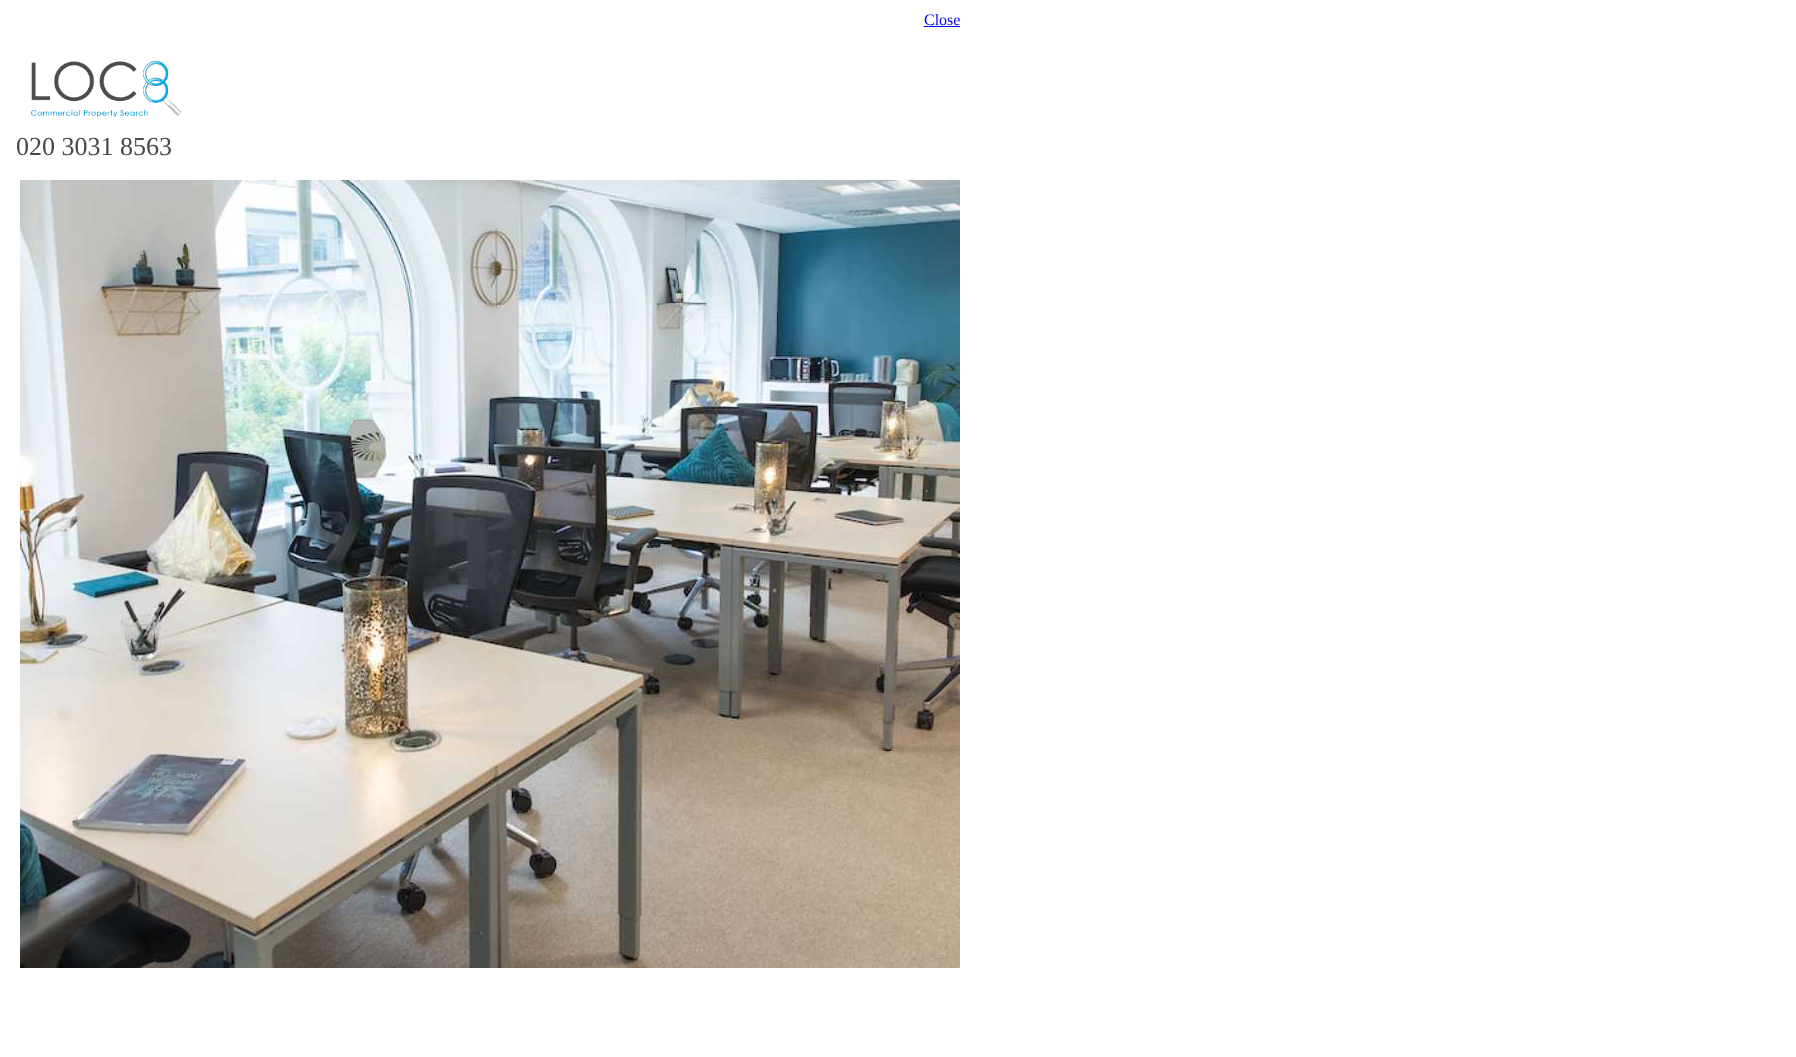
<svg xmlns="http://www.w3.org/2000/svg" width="1796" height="1057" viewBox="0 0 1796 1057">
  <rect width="100%" height="100%" fill="#fff"/>
  <path d="M924 26h36v1H924z" fill="#00e"/>
  <image x="31" y="60" width="150" height="57" href="img/1.png"/>
  <image x="20" y="180" width="940" height="788" href="img/2.png"/>
  <text x="924" y="25" font-family="Liberation Serif" font-size="16" fill="#00e">Close</text>
  <text x="16" y="155" font-family="Liberation Serif" font-size="26" fill="#474747">020 3031 8563</text>
</svg>
